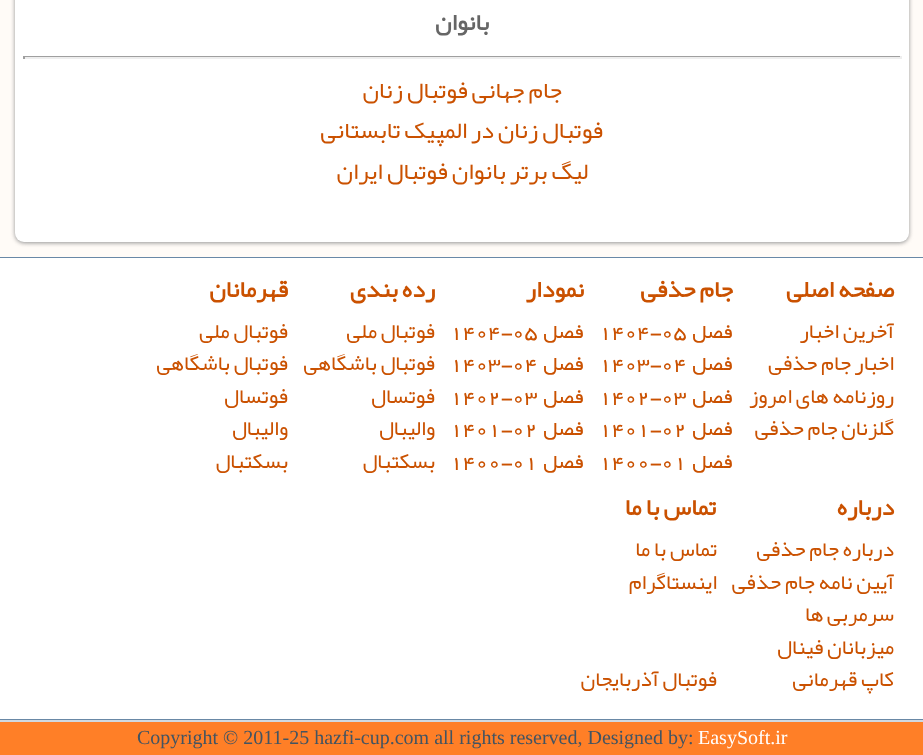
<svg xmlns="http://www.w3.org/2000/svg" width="923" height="755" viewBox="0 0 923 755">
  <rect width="100%" height="100%" fill="#fffbf7"/>
  <path d="M0 257h923v1H0z" fill="#6988a6"/>
  <rect x="15" y="-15" width="894" height="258" rx="9" fill="#929292" filter="blur(2px)"/>
  <rect x="15" y="-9" width="894" height="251" rx="9" fill="#fff"/>
  <path d="M23 56h879v1H23z" fill="#9f9f9f"/>
  <path d="M900 56h2v3H900z" fill="#eee"/>
  <path d="M23 57h879v2H23z" fill="#eee"/>
  <path d="M23 56h2v3H23z" fill="#9f9f9f"/>
  <path d="M0 258h923v461H0z" fill="#fff"/>
  <path d="M0 719h923v1H0z" fill="#6988a6"/>
  <path d="M0 722h923v33H0z" fill="#ff7f27"/>
  <path d="M0 720h923v2H0z" fill="#d0d9e0"/>
  <text x="489" y="30" font-family="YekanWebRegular" font-size="24" font-weight="bold" direction="rtl" fill="#666">بانوان</text>
  <g font-family="YekanWebRegular" font-size="24" direction="rtl" fill="#ca5100">
    <text x="562" y="98">جام جهانی فوتبال زنان</text>
    <text x="603" y="138">فوتبال زنان در</text>
    <text x="467" y="138">المپیک تابستانی</text>
    <text x="588" y="179">لیگ برتر بانوان فوتبال ایران</text>
  </g>
  <text x="894" y="297" font-family="YekanWebRegular" font-size="24" font-weight="bold" direction="rtl" fill="#ca5100">صفحه اصلی</text>
  <g font-family="YekanWebRegular" font-size="21.5" direction="rtl" fill="#ca5100">
    <text x="894" y="338">آخرین اخبار</text>
    <text x="894" y="370">اخبار</text>
    <text x="851" y="370">جام حذفی</text>
    <text x="894" y="403">روزنامه های امروز</text>
    <text x="894" y="435">گلزنان جام حذفی</text>
  </g>
  <text x="733" y="297" font-family="YekanWebRegular" font-size="24" font-weight="bold" direction="rtl" fill="#ca5100">جام حذفی</text>
  <text x="733" y="338" font-family="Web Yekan" font-size="21.5" direction="rtl" fill="#ca5100">فصل</text>
  <g font-family="Web Yekan" font-size="21.5" fill="#ca5100">
    <text x="661" y="338">05</text>
    <text x="599" y="338">1404-</text>
  </g>
  <text x="733" y="370" font-family="Web Yekan" font-size="21.5" direction="rtl" fill="#ca5100">فصل</text>
  <g font-family="Web Yekan" font-size="21.5" fill="#ca5100">
    <text x="661" y="370">04</text>
    <text x="599" y="370">1403-</text>
  </g>
  <text x="733" y="403" font-family="Web Yekan" font-size="21.5" direction="rtl" fill="#ca5100">فصل</text>
  <g font-family="Web Yekan" font-size="21.5" fill="#ca5100">
    <text x="661" y="403">03</text>
    <text x="599" y="403">1402-</text>
  </g>
  <text x="733" y="435" font-family="Web Yekan" font-size="21.5" direction="rtl" fill="#ca5100">فصل</text>
  <g font-family="Web Yekan" font-size="21.5" fill="#ca5100">
    <text x="661" y="435">02</text>
    <text x="599" y="435">1401-</text>
  </g>
  <text x="733" y="468" font-family="Web Yekan" font-size="21.5" direction="rtl" fill="#ca5100">فصل</text>
  <g font-family="Web Yekan" font-size="21.5" fill="#ca5100">
    <text x="661" y="468">01</text>
    <text x="599" y="468">1400-</text>
  </g>
  <text x="584" y="297" font-family="YekanWebRegular" font-size="24" font-weight="bold" direction="rtl" fill="#ca5100">نمودار</text>
  <text x="584" y="338" font-family="Web Yekan" font-size="21.5" direction="rtl" fill="#ca5100">فصل</text>
  <g font-family="Web Yekan" font-size="21.5" fill="#ca5100">
    <text x="512" y="338">05</text>
    <text x="450" y="338">1404-</text>
  </g>
  <text x="584" y="370" font-family="Web Yekan" font-size="21.5" direction="rtl" fill="#ca5100">فصل</text>
  <g font-family="Web Yekan" font-size="21.5" fill="#ca5100">
    <text x="512" y="370">04</text>
    <text x="450" y="370">1403-</text>
  </g>
  <text x="584" y="403" font-family="Web Yekan" font-size="21.5" direction="rtl" fill="#ca5100">فصل</text>
  <g font-family="Web Yekan" font-size="21.5" fill="#ca5100">
    <text x="512" y="403">03</text>
    <text x="450" y="403">1402-</text>
  </g>
  <text x="584" y="435" font-family="Web Yekan" font-size="21.5" direction="rtl" fill="#ca5100">فصل</text>
  <g font-family="Web Yekan" font-size="21.5" fill="#ca5100">
    <text x="512" y="435">02</text>
    <text x="450" y="435">1401-</text>
  </g>
  <text x="584" y="468" font-family="Web Yekan" font-size="21.5" direction="rtl" fill="#ca5100">فصل</text>
  <g font-family="Web Yekan" font-size="21.5" fill="#ca5100">
    <text x="512" y="468">01</text>
    <text x="450" y="468">1400-</text>
  </g>
  <text x="435" y="297" font-family="YekanWebRegular" font-size="24" font-weight="bold" direction="rtl" fill="#ca5100">رده بندی</text>
  <g font-family="YekanWebRegular" font-size="21.5" direction="rtl" fill="#ca5100">
    <text x="435" y="338">فوتبال</text>
    <text x="377" y="338">ملی</text>
    <text x="435" y="370">فوتبال باشگاهی</text>
    <text x="435" y="403">فوتسال</text>
    <text x="435" y="435">والیبال</text>
    <text x="435" y="468">بسکتبال</text>
  </g>
  <text x="288" y="297" font-family="YekanWebRegular" font-size="24" font-weight="bold" direction="rtl" fill="#ca5100">قهرمانان</text>
  <g font-family="YekanWebRegular" font-size="21.5" direction="rtl" fill="#ca5100">
    <text x="288" y="338">فوتبال ملی</text>
    <text x="288" y="370">فوتبال باشگاهی</text>
    <text x="288" y="403">فوتسال</text>
    <text x="288" y="435">والیبال</text>
    <text x="288" y="468">بسکتبال</text>
  </g>
  <text x="894" y="515" font-family="YekanWebRegular" font-size="24" font-weight="bold" direction="rtl" fill="#ca5100">درباره</text>
  <g font-family="YekanWebRegular" font-size="21.5" direction="rtl" fill="#ca5100">
    <text x="894" y="556">درباره جام حذفی</text>
    <text x="894" y="589">آیین نامه جام</text>
    <text x="781" y="589">حذفی</text>
    <text x="894" y="621">سرمربی ها</text>
    <text x="894" y="654">میزبانان فینال</text>
    <text x="894" y="686">کاپ قهرمانی</text>
  </g>
  <text x="716" y="515" font-family="YekanWebRegular" font-size="24" font-weight="bold" direction="rtl" fill="#ca5100">تماس با ما</text>
  <g font-family="YekanWebRegular" font-size="21.5" direction="rtl" fill="#ca5100">
    <text x="717" y="556">تماس با ما</text>
    <text x="717" y="589">اینستاگرام</text>
    <text x="717" y="686">فوتبال آذربایجان</text>
  </g>
  <text x="698" y="744" font-family="Liberation Serif" font-size="20" fill="#fff">EasySoft.ir</text>
  <text x="137" y="744" font-family="Liberation Serif" font-size="20" fill="#425462">Copyright © 2011-25 hazfi-cup.com all rights reserved, Designed by:</text>
</svg>
